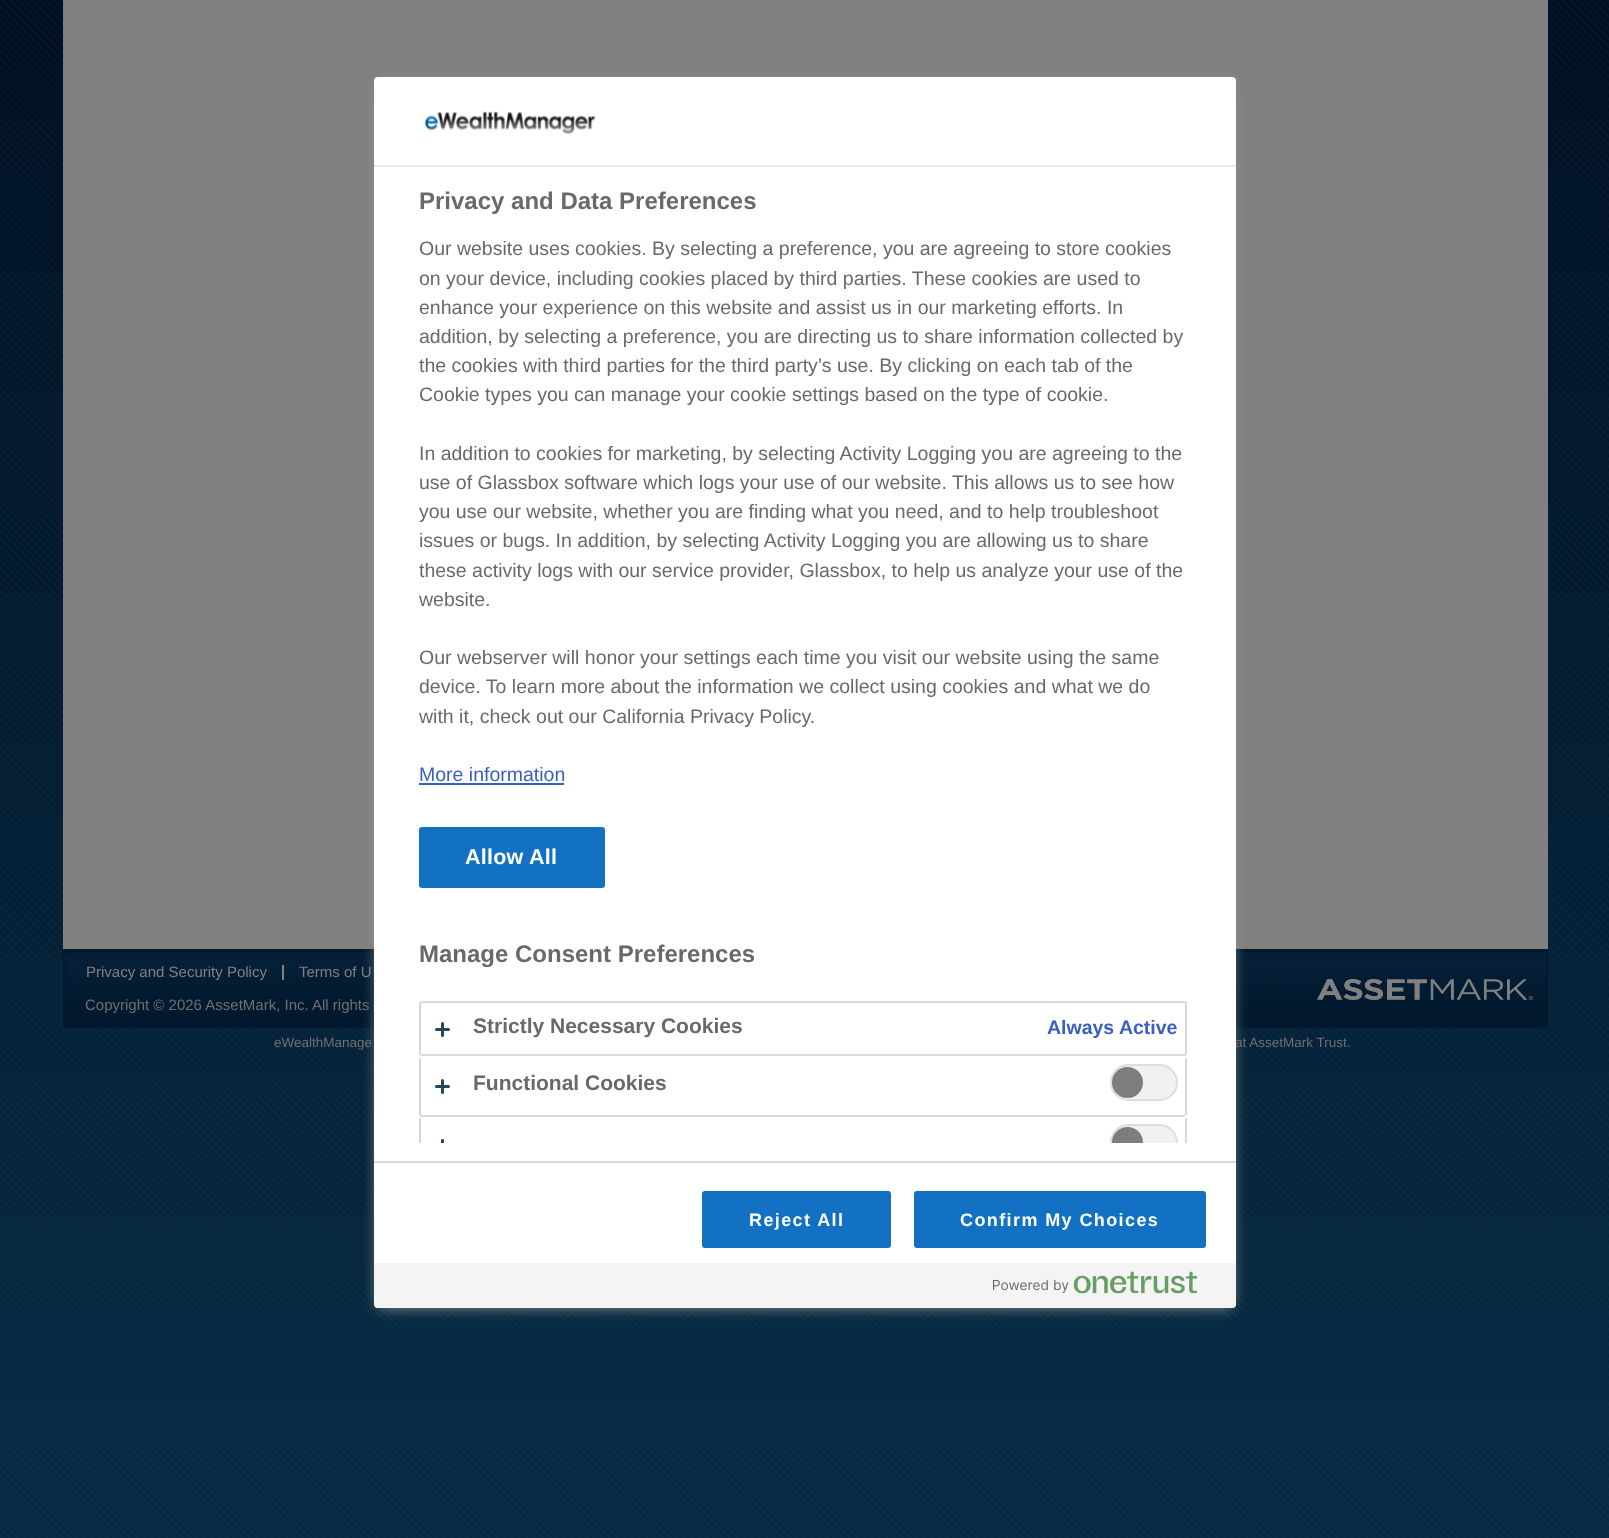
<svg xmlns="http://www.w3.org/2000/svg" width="1609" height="1538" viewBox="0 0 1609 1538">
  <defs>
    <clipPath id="clip1"><path d="M419 168h813v975H419z"/></clipPath>
  </defs>
  <rect width="100%" height="100%" fill="#fff"/>
  <image x="0" y="0" width="1609" height="1538" href="img/1.png"/>
  <image x="63" y="0" width="1485" height="949" href="img/4.png"/>
  <path d="M63 1027h1485v1H63z" fill="#031e34"/>
  <image x="63" y="949" width="1485" height="78" href="img/5.png"/>
  <path d="M378 84h854v1223H378z" fill="#999" filter="blur(7.5px)"/>
  <path d="M282 965h2v15H282z" fill="#808080"/>
  <image x="1317" y="979" width="216" height="21" href="img/6.png"/>
  <g font-family="Liberation Sans" font-size="15" fill="#808080">
    <text x="86" y="977">Privacy and Security Policy</text>
    <text x="299" y="977">Terms of U</text>
  </g>
  <text x="85" y="1010" font-family="Liberation Sans" font-size="15" fill="#6f6f6f">Copyright © 2026 AssetMark, Inc. All rights</text>
  <g font-family="Liberation Sans" font-size="13.5" fill="#6f6f6f">
    <text x="274" y="1047">eWealthManage</text>
    <text x="1235" y="1047">at AssetMark Trust.</text>
  </g>
  <rect x="374" y="77" width="862" height="1231" rx="4" fill="#fff"/>
  <g clip-path="url(#clip1)">
    <rect x="1111" y="1125" width="66" height="35" rx="17.5" fill="#f2f1f1" stroke="#ddd" stroke-width="2"/>
    <circle cx="1127.5" cy="1142.5" r="15.5" fill="#7d7d7d"/>
  </g>
  <rect x="1111" y="1065" width="66" height="35" rx="17.5" fill="#f2f1f1" stroke="#ddd" stroke-width="2"/>
  <circle cx="1127.5" cy="1082.5" r="15.5" fill="#7d7d7d"/>
  <path d="M374 1263H1236V1304C1236 1306 1234 1308 1232 1308H378C376 1308 374 1306 374 1304Z" fill="#f4f4f4"/>
  <image x="993" y="1271" width="204" height="23" href="img/3.png"/>
  <rect x="915" y="1192" width="290" height="55" rx="2" fill="#1371c3" stroke="#1371c3" stroke-width="2"/>
  <text x="960" y="1226" font-family="Liberation Sans" font-size="18" font-weight="bold" letter-spacing="1.4" fill="#fff">Confirm My Choices</text>
  <rect x="703" y="1192" width="187" height="55" rx="2" fill="#1371c3" stroke="#1371c3" stroke-width="2"/>
  <text x="749" y="1226" font-family="Liberation Sans" font-size="18" font-weight="bold" letter-spacing="1.4" fill="#fff">Reject All</text>
  <path d="M374 1161h862v2H374z" fill="#d8d8d8"/>
  <path d="M442.5 1139C443.5 1139 444 1139.5 444 1140.5V1143H441V1140.5C441 1139.5 441.5 1139 442.5 1139Z" fill="#27455c"/>
  <path d="M419 1118h2v25H419z" fill="#d8d8d8"/>
  <path d="M1185 1118h2v25H1185z" fill="#d8d8d8"/>
  <rect x="441" y="1079" width="3" height="15" rx="1.5" fill="#27455c"/>
  <rect x="435" y="1085" width="15" height="3" rx="1.5" fill="#27455c"/>
  <text x="473" y="1090" font-family="Liberation Sans" font-size="21" font-weight="bold" fill="#696969">Functional Cookies</text>
  <path d="M419 1058h2v57H419z" fill="#d8d8d8"/>
  <path d="M420 1115h765v2H420z" fill="#d8d8d8"/>
  <path d="M1185 1058h2v57H1185z" fill="#d8d8d8"/>
  <rect x="420" y="1002" width="766" height="53" rx="2" fill="none" stroke="#d8d8d8" stroke-width="2"/>
  <text x="1047" y="1034" font-family="Liberation Sans" font-size="19.5" font-weight="bold" fill="#3860be">Always Active</text>
  <rect x="441" y="1022" width="3" height="15" rx="1.5" fill="#27455c"/>
  <rect x="435" y="1028" width="15" height="3" rx="1.5" fill="#27455c"/>
  <text x="473" y="1033" font-family="Liberation Sans" font-size="21" font-weight="bold" fill="#696969">Strictly Necessary Cookies</text>
  <rect x="420" y="828" width="184" height="59" rx="2" fill="#1371c3" stroke="#1371c3" stroke-width="2"/>
  <text x="465" y="864" font-family="Liberation Sans" font-size="21.5" font-weight="bold" letter-spacing="0.25" fill="#fff">Allow All</text>
  <text x="419" y="781" font-family="Liberation Sans" font-size="19.5" fill="#3860be">More information</text>
  <path d="M419 783h145v2H419z" fill="#3860be"/>
  <g font-family="Liberation Sans" font-size="19.5" fill="#696969">
    <text x="419" y="723">with it, check out our California Privacy Policy.</text>
    <text x="419" y="693">device. To learn more about the information we collect using cookies and what we do</text>
    <text x="419" y="664">Our webserver will honor your settings each time you visit our website using the same</text>
    <text x="419" y="606">website.</text>
    <text x="419" y="577">these activity logs with our service provider, Glassbox, to help us analyze your use of the</text>
    <text x="419" y="547">issues or bugs. In addition, by selecting Activity Logging you are allowing us to share</text>
    <text x="419" y="518">you use our website, whether you are finding what you need, and to help troubleshoot</text>
    <text x="419" y="489">use of Glassbox software which logs your use of our website. This allows us to see how</text>
    <text x="419" y="460">In addition to cookies for marketing, by selecting Activity Logging you are agreeing to the</text>
    <text x="419" y="401">Cookie types you can manage your cookie settings based on the type of cookie.</text>
    <text x="419" y="372">the cookies with third parties for the third party’s use. By clicking on each tab of the</text>
    <text x="419" y="343">addition, by selecting a preference, you are directing us to share information collected by</text>
    <text x="419" y="314">enhance your experience on this website and assist us in our marketing efforts. In</text>
    <text x="419" y="285">on your device, including cookies placed by third parties. These cookies are used to</text>
    <text x="419" y="255">Our website uses cookies. By selecting a preference, you are agreeing to store cookies</text>
  </g>
  <g font-family="Liberation Sans" font-size="24" font-weight="bold" fill="#696969">
    <text x="419" y="962">Manage Consent Preferences</text>
    <text x="419" y="209">Privacy and Data Preferences</text>
  </g>
  <image x="424" y="111" width="172" height="24" href="img/2.png"/>
  <path d="M374 165h862v2H374z" fill="#e9e9e9"/>
</svg>
